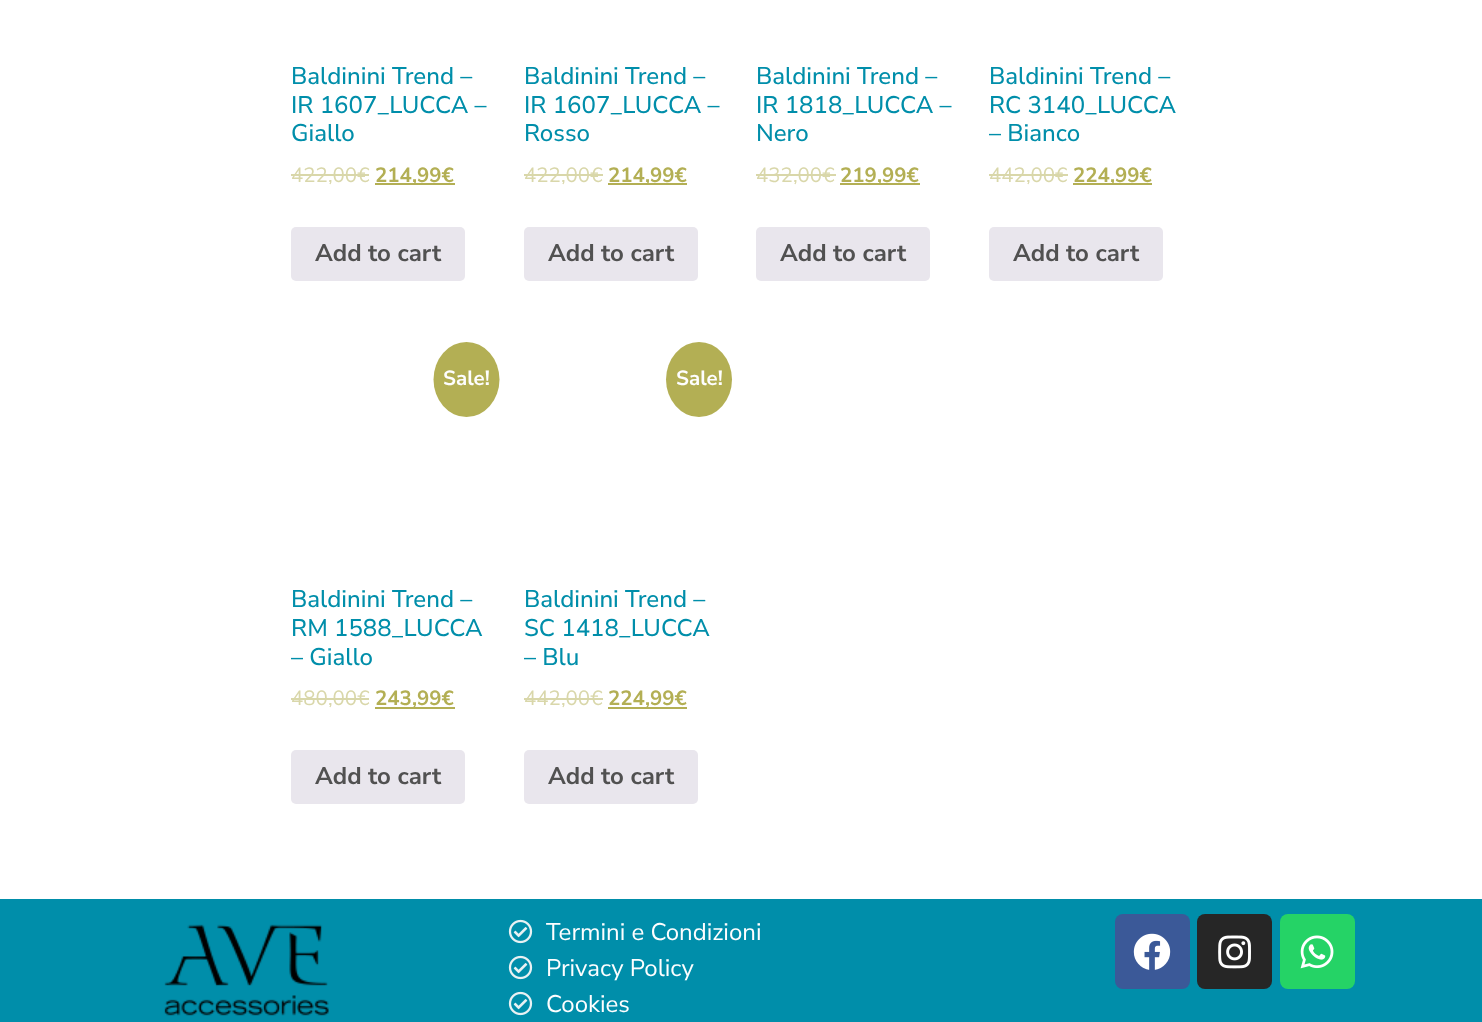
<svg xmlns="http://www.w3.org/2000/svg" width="1482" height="1022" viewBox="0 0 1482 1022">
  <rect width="100%" height="100%" fill="#fff"/>
  <path d="M291 174h78v2H291z" fill="#d9d7aa"/>
  <path d="M375 183h80v2H375z" fill="#b3af54"/>
  <rect x="291" y="227" width="174" height="54" rx="5" fill="#e9e6ed"/>
  <path d="M524 174h79v2H524z" fill="#d9d7aa"/>
  <path d="M608 183h79v2H608z" fill="#b3af54"/>
  <rect x="524" y="227" width="174" height="54" rx="5" fill="#e9e6ed"/>
  <path d="M756 174h80v2H756z" fill="#d9d7aa"/>
  <path d="M840 183h80v2H840z" fill="#b3af54"/>
  <rect x="756" y="227" width="174" height="54" rx="5" fill="#e9e6ed"/>
  <path d="M989 174h67v2H989z" fill="#d9d7aa"/>
  <path d="M1056 174h12v2H1056z" fill="#d9d7aa"/>
  <path d="M1073 183h79v2H1073z" fill="#b3af54"/>
  <rect x="989" y="227" width="174" height="54" rx="5" fill="#e9e6ed"/>
  <ellipse cx="466.5" cy="379.5" rx="33" ry="37.5" fill="#b3af54"/>
  <path d="M291 698h78v2H291z" fill="#d9d7aa"/>
  <path d="M375 707h80v2H375z" fill="#b3af54"/>
  <rect x="291" y="750" width="174" height="54" rx="5" fill="#e9e6ed"/>
  <ellipse cx="699" cy="379.5" rx="33" ry="37.5" fill="#b3af54"/>
  <path d="M524 698h79v2H524z" fill="#d9d7aa"/>
  <path d="M608 707h79v2H608z" fill="#b3af54"/>
  <rect x="524" y="750" width="174" height="54" rx="5" fill="#e9e6ed"/>
  <path d="M0 899h1482v123H0z" fill="#008eaa"/>
  <image x="164" y="924" width="165" height="92" href="img/1.png"/>
  <image x="508" y="919" width="25" height="25" href="img/2.png"/>
  <image x="508" y="955" width="25" height="25" href="img/2.png"/>
  <image x="508" y="991" width="25" height="25" href="img/2.png"/>
  <rect x="1115" y="914" width="75" height="75" rx="8" fill="#3b5998"/>
  <image x="1133" y="933" width="38" height="37" href="img/3.png"/>
  <rect x="1197" y="914" width="75" height="75" rx="8" fill="#262626"/>
  <image x="1218" y="935" width="33" height="34" href="img/4.png"/>
  <rect x="1280" y="914" width="75" height="75" rx="8" fill="#25d366"/>
  <image x="1300" y="935" width="34" height="34" href="img/5.png"/>
  <g font-family="Nunito Sans" font-size="24" font-weight="500" fill="#008eaa">
    <text x="291" y="84">Baldinini Trend –</text>
    <text x="291" y="113">IR 1607_LUCCA –</text>
    <text x="291" y="141">Giallo</text>
  </g>
  <text x="291" y="182" font-family="Nunito Sans" font-size="20.5" fill="#d9d7aa">422,00€</text>
  <text x="375" y="182" font-family="Nunito Sans" font-size="20.5" font-weight="bold" fill="#b3af54">214,99€</text>
  <text x="315" y="261" font-family="Nunito Sans" font-size="24" font-weight="bold" fill="#515151">Add to cart</text>
  <g font-family="Nunito Sans" font-size="24" font-weight="500" fill="#008eaa">
    <text x="524" y="84">Baldinini Trend –</text>
    <text x="524" y="113">IR 1607_LUCCA –</text>
    <text x="524" y="141">Rosso</text>
  </g>
  <text x="524" y="182" font-family="Nunito Sans" font-size="20.5" fill="#d9d7aa">422,00€</text>
  <text x="608" y="182" font-family="Nunito Sans" font-size="20.5" font-weight="bold" fill="#b3af54">214,99€</text>
  <text x="548" y="261" font-family="Nunito Sans" font-size="24" font-weight="bold" fill="#515151">Add to cart</text>
  <g font-family="Nunito Sans" font-size="24" font-weight="500" fill="#008eaa">
    <text x="756" y="84">Baldinini Trend –</text>
    <text x="756" y="113">IR 1818_LUCCA –</text>
    <text x="756" y="141">Nero</text>
  </g>
  <text x="756" y="182" font-family="Nunito Sans" font-size="20.5" fill="#d9d7aa">432,00€</text>
  <text x="840" y="182" font-family="Nunito Sans" font-size="20.5" font-weight="bold" fill="#b3af54">219,99€</text>
  <text x="780" y="261" font-family="Nunito Sans" font-size="24" font-weight="bold" fill="#515151">Add to cart</text>
  <g font-family="Nunito Sans" font-size="24" font-weight="500" fill="#008eaa">
    <text x="989" y="84">Baldinini Trend –</text>
    <text x="989" y="113">RC 3140_LUCCA</text>
    <text x="989" y="141">– Bianco</text>
  </g>
  <g font-family="Nunito Sans" font-size="20.5" fill="#d9d7aa">
    <text x="989" y="182">442,00</text>
    <text x="1055" y="182">€</text>
  </g>
  <text x="1073" y="182" font-family="Nunito Sans" font-size="20.5" font-weight="bold" fill="#b3af54">224,99€</text>
  <text x="1013" y="261" font-family="Nunito Sans" font-size="24" font-weight="bold" fill="#515151">Add to cart</text>
  <text x="443" y="385" font-family="Nunito Sans" font-size="20.5" font-weight="bold" fill="#fefeff">Sale!</text>
  <g font-family="Nunito Sans" font-size="24" font-weight="500" fill="#008eaa">
    <text x="291" y="607">Baldinini Trend –</text>
    <text x="291" y="636">RM 1588_LUCCA</text>
    <text x="291" y="665">– Giallo</text>
  </g>
  <text x="291" y="705" font-family="Nunito Sans" font-size="20.5" fill="#d9d7aa">480,00€</text>
  <text x="375" y="705" font-family="Nunito Sans" font-size="20.5" font-weight="bold" fill="#b3af54">243,99€</text>
  <text x="315" y="784" font-family="Nunito Sans" font-size="24" font-weight="bold" fill="#515151">Add to cart</text>
  <text x="676" y="385" font-family="Nunito Sans" font-size="20.5" font-weight="bold" fill="#fefeff">Sale!</text>
  <g font-family="Nunito Sans" font-size="24" font-weight="500" fill="#008eaa">
    <text x="524" y="607">Baldinini Trend –</text>
    <text x="524" y="636">SC 1418_LUCCA</text>
    <text x="524" y="665">– Blu</text>
  </g>
  <text x="524" y="705" font-family="Nunito Sans" font-size="20.5" fill="#d9d7aa">442,00€</text>
  <text x="608" y="705" font-family="Nunito Sans" font-size="20.5" font-weight="bold" fill="#b3af54">224,99€</text>
  <text x="548" y="784" font-family="Nunito Sans" font-size="24" font-weight="bold" fill="#515151">Add to cart</text>
  <g font-family="Nunito Sans" font-size="24" fill="#fefeff">
    <text x="546" y="940">Termini e Condizioni</text>
    <text x="546" y="976">Privacy Policy</text>
    <text x="546" y="1012">Cookies</text>
  </g>
</svg>
